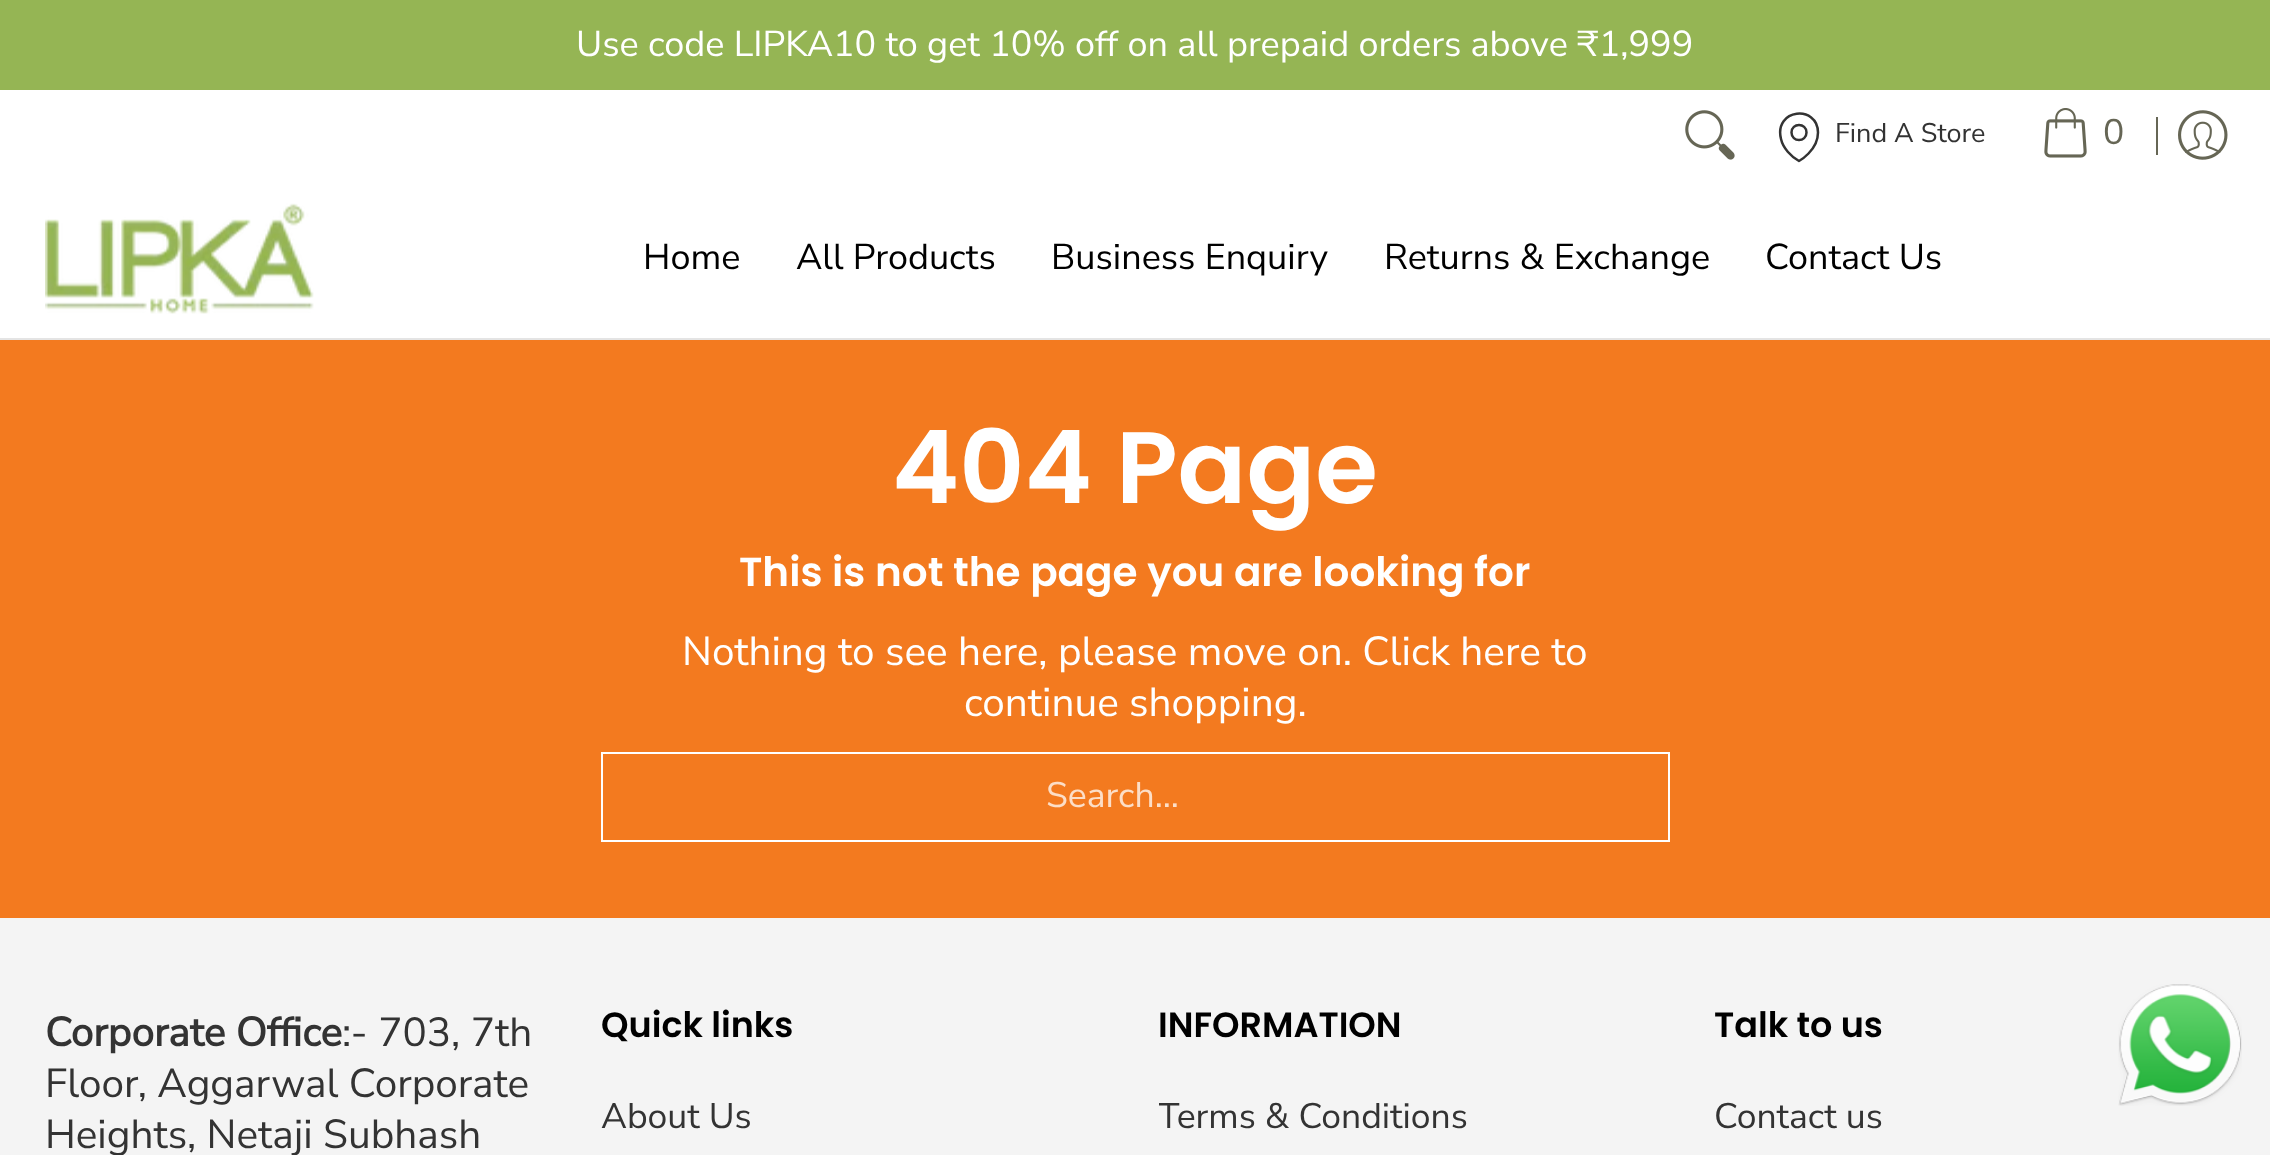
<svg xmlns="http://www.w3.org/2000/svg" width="2270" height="1155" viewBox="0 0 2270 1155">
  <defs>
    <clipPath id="clip1"><path d="M1159 1078h511v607H1159z"/></clipPath>
  </defs>
  <rect width="100%" height="100%" fill="#fff"/>
  <path d="M0 0h2270v90H0z" fill="#95b554"/>
  <image x="1685" y="110" width="50" height="50" href="img/1.png"/>
  <path d="M1806.5 132.5C1806.5 142.5 1791.5 142.5 1791.5 132.5C1791.5 122.5 1806.5 122.5 1806.5 132.5ZM1818 132.5C1818 150.5 1799 161 1799 161C1791 156.5 1783 148 1781 139C1773.5 108.5 1818 104.5 1818 132.5Z" fill="none" stroke="#333" stroke-width="2.5" stroke-linecap="round" stroke-linejoin="round"/>
  <image x="2044" y="108" width="43" height="50" href="img/2.png"/>
  <path d="M2156 117h2v38H2156z" fill="#665"/>
  <image x="2178" y="110" width="50" height="50" href="img/3.png"/>
  <path d="M0 338h2270v2H0z" fill="#e4e4e4"/>
  <image x="45" y="203" width="269" height="111" href="img/4.png"/>
  <path d="M0 340h2270v578H0z" fill="#f37a1f"/>
  <path d="M602 753h1067v88H602z" fill="none" stroke="#fff" stroke-width="2"/>
  <path d="M0 918h2270v237H0z" fill="#f4f4f4"/>
  <image x="2118" y="984" width="124" height="122" href="img/5.png"/>
  <text x="576" y="56" font-family="Nunito Sans" font-size="36" fill="#fff">Use code LIPKA10 to get 10% off on all prepaid orders above ₹1,999</text>
  <text x="1835" y="142" font-family="Nunito Sans" font-size="27" fill="#333">Find A Store</text>
  <text x="2103" y="144" font-family="Nunito Sans" font-size="35.5" fill="#665">0</text>
  <g font-family="Nunito Sans" font-size="36" fill="#000">
    <text x="643" y="269">Home</text>
    <text x="796" y="269">All Products</text>
    <text x="1051" y="269">Business Enquiry</text>
    <text x="1384" y="269">Returns &amp; Exchange</text>
    <text x="1765" y="269">Contact Us</text>
  </g>
  <text x="892" y="503" font-family="Poppins" font-size="101.5" font-weight="600" fill="#fff">404 Page</text>
  <text x="739" y="586" font-family="Poppins" font-size="40.5" font-weight="600" fill="#fff">This is not the page you are looking for</text>
  <g font-family="Nunito Sans" font-size="40.5" fill="#fff">
    <text x="682" y="665">Nothing to see here, please move on. Click here to</text>
    <text x="964" y="716">continue shopping.</text>
  </g>
  <text x="1046" y="807" font-family="Nunito Sans" font-size="35.5" fill="#fcdec7">Search...</text>
  <text x="45" y="1046" font-family="Nunito Sans" font-size="40.5" font-weight="bold" fill="#333">Corporate Office</text>
  <g font-family="Nunito Sans" font-size="40.5" fill="#333">
    <text x="342" y="1046">:- 703, 7th</text>
    <text x="45" y="1097">Floor, Aggarwal Corporate</text>
    <text x="45" y="1148">Heights, Netaji Subhash</text>
  </g>
  <text x="601" y="1037" font-family="Poppins" font-size="35" font-weight="600" fill="#000">Quick links</text>
  <text x="601" y="1128" font-family="Nunito Sans" font-size="35.5" fill="#333">About Us</text>
  <text x="1158" y="1037" font-family="Poppins" font-size="35" font-weight="600" fill="#000">INFORMATION</text>
  <g clip-path="url(#clip1)">
    <text x="1158" y="1128" font-family="Nunito Sans" font-size="35.5" fill="#333">Terms &amp; Conditions</text>
  </g>
  <text x="1714" y="1037" font-family="Poppins" font-size="35" font-weight="600" fill="#000">Talk to us</text>
  <text x="1714" y="1128" font-family="Nunito Sans" font-size="35.5" fill="#333">Contact us</text>
</svg>
